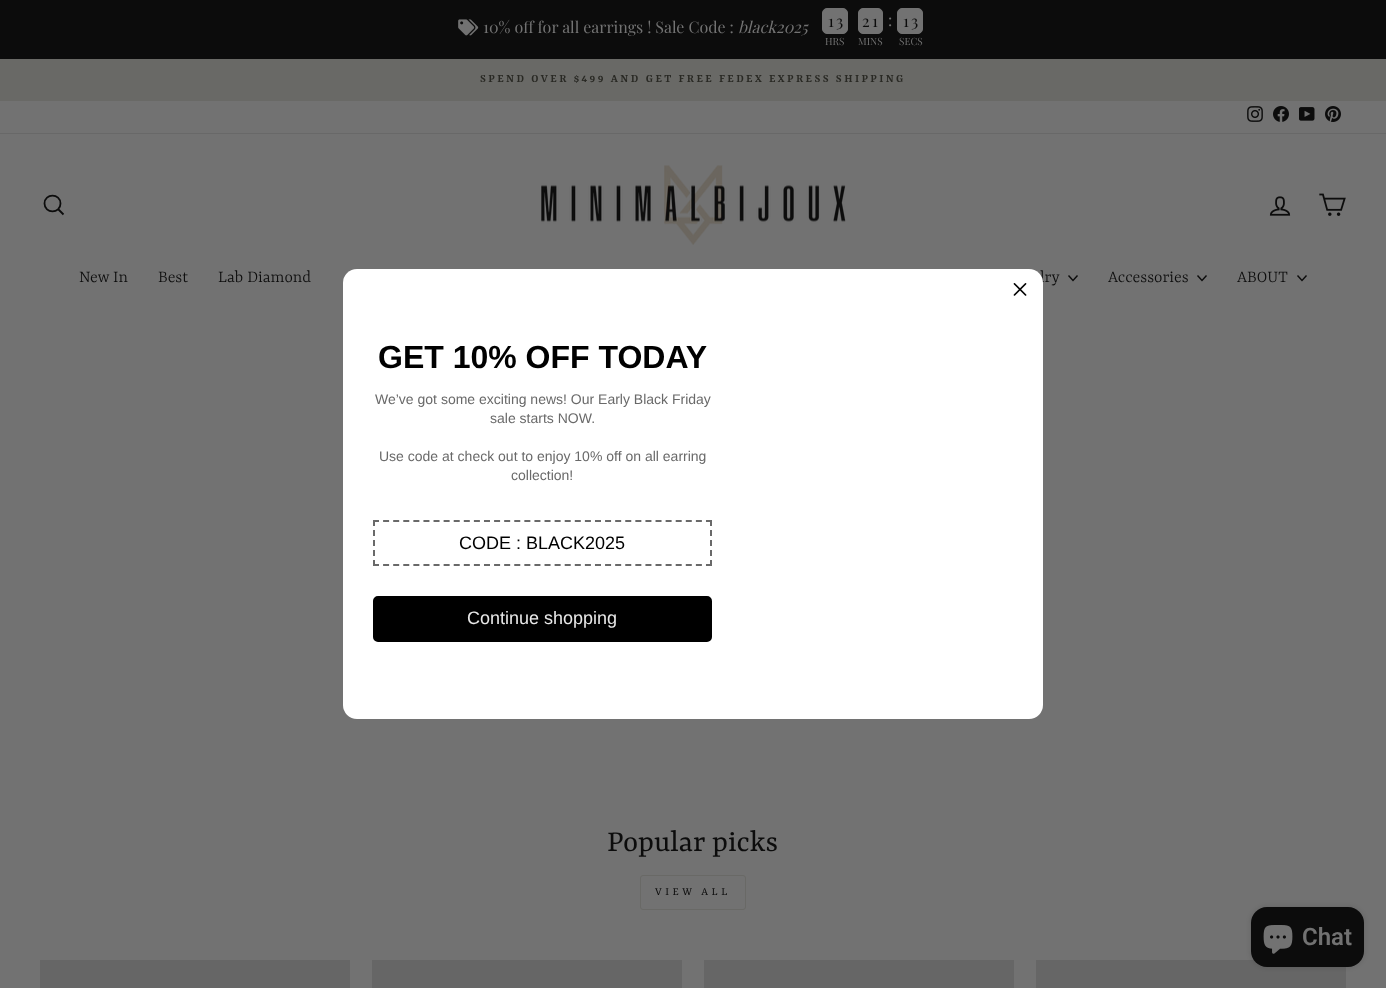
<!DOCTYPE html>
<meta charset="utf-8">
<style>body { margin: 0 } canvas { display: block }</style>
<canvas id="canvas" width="1386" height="988"></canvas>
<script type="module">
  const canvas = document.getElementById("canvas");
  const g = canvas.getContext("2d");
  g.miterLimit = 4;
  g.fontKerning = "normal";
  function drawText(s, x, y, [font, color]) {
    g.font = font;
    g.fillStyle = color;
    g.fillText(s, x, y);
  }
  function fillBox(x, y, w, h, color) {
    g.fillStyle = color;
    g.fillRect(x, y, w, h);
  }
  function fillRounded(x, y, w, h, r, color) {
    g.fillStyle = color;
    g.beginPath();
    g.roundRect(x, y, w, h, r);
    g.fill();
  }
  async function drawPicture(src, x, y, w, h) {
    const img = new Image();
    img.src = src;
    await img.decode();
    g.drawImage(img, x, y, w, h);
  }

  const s1 = ["16px Playfair Display", "#727272"];
  const s2 = ["italic 16px Playfair Display", "#727272"];
  const s3 = ["16px Playfair Display", "#0C0C0C"];
  const s4 = ["10px Playfair Display", "#727272"];
  const s5 = ["600 12.25px Yrsa", "#292924"];
  const s6 = ["300 18px Yrsa", "#0C0C0C"];
  const s7 = ["32.25px Yrsa", "#0C0C0C"];
  const s8 = ["12px Yrsa", "#0C0C0C"];
  const s9 = ["bold 32px Liberation Sans", "#000000"];
  const s10 = ["14px Liberation Sans", "#696969"];
  const s11 = ["18px Liberation Sans", "#000000"];
  const s12 = ["18px Liberation Sans", "#E8E8E8"];
  const s13 = ["600 24px Roboto", "#727272"];

  fillBox(0, 0, 1386, 988, "#727272");
  fillBox(0, 0, 1386, 59, "#0C0C0C");
  await drawPicture("pic1.png", 458, 19, 21, 17);
  drawText("10% off for all earrings ! Sale Code :", 483, 33, s1);
  drawText("black2025", 738, 33, s2);
  g.beginPath();
  g.roundRect(822.5, 8.5, 25, 25, 4.5);
  g.fill();
  g.strokeStyle = "#727272";
  g.stroke();
  drawText("1", 828, 27, s3);
  drawText("3", 836, 27, s3);
  drawText("HRS", 825, 45, s4);
  g.beginPath();
  g.roundRect(858.5, 8.5, 24, 25, 4.5);
  g.fill();
  g.stroke();
  drawText("2", 862, 27, s3);
  drawText("1", 872, 27, s3);
  drawText("MINS", 858, 45, s4);
  drawText(":", 888, 26, s1);
  g.beginPath();
  g.roundRect(897.5, 8.5, 25, 25, 4.5);
  g.fill();
  g.stroke();
  drawText("1", 903, 27, s3);
  drawText("3", 911, 27, s3);
  drawText("SECS", 899, 45, s4);
  fillBox(0, 59, 1386, 42, "#696966");
  g.letterSpacing = "2.45px";
  drawText("SPEND OVER $499 AND GET FREE FEDEX EXPRESS SHIPPING", 480, 82, s5);
  await drawPicture("pic2.png", 1247, 106, 16, 16);
  await drawPicture("pic3.png", 1273, 106, 16, 16);
  await drawPicture("pic4.png", 1299, 107, 16, 14);
  await drawPicture("pic5.png", 1325, 106, 16, 16);
  fillBox(0, 133, 1386, 1, "#686868");
  g.beginPath();
  g.moveTo(60.5, 203.5);
  g.bezierCurveTo(60.5, 214, 44.5, 214, 44.5, 203.5);
  g.bezierCurveTo(44.5, 193, 60.5, 193, 60.5, 203.5);
  g.closePath();
  g.moveTo(63.5, 214.5);
  g.lineTo(58.5, 209.5);
  g.strokeStyle = "#0C0C0C";
  g.lineWidth = 1.8;
  g.stroke();
  await drawPicture("pic6.png", 541, 165, 305, 80);
  await drawPicture("pic7.png", 1269, 196, 22, 20);
  await drawPicture("pic8.png", 1319, 193, 27, 23);
  g.letterSpacing = "0px";
  drawText("New In", 79, 282, s6);
  drawText("Best", 158, 282, s6);
  drawText("Lab Diamond", 218, 282, s6);
  drawText("lry", 1040, 282, s6);
  g.beginPath();
  g.moveTo(1068.5, 275.5);
  g.lineTo(1073, 280.5);
  g.lineTo(1077.5, 275.5);
  g.lineWidth = 1.4;
  g.stroke();
  drawText("Accessories", 1108, 282, s6);
  g.beginPath();
  g.moveTo(1197.5, 275.5);
  g.lineTo(1202, 280.5);
  g.lineTo(1206.5, 275.5);
  g.stroke();
  drawText("ABOUT", 1237, 282, s6);
  g.beginPath();
  g.moveTo(1297.5, 275.5);
  g.lineTo(1302, 280.5);
  g.lineTo(1306.5, 275.5);
  g.stroke();
  drawText("Popular picks", 607, 851, s7);
  g.beginPath();
  g.roundRect(640.5, 875.5, 105, 34, 2.5);
  g.strokeStyle = "#696966";
  g.lineWidth = 1;
  g.stroke();
  g.letterSpacing = "3.5px";
  drawText("VIEW ALL", 655, 895, s8);
  fillBox(40, 960, 310, 28, "#666666");
  fillBox(372, 960, 310, 28, "#666666");
  fillBox(704, 960, 310, 28, "#666666");
  fillBox(1036, 960, 310, 28, "#666666");
  fillRounded(343, 269, 700, 450, 14, "#FFFFFF");
  await drawPicture("pic9.png", 1013, 283, 14, 13);
  g.letterSpacing = "0px";
  drawText("GET 10% OFF TODAY", 378, 368, s9);
  drawText("We’ve got some exciting news! Our Early Black Friday", 375, 404, s10);
  drawText("sale starts NOW.", 490, 423, s10);
  drawText("Use code at check out to enjoy 10% off on all earring", 379, 461, s10);
  drawText("collection!", 511, 480, s10);
  g.beginPath();
  g.moveTo(373, 521);
  g.lineTo(712, 521);
  g.strokeStyle = "#696969";
  g.lineWidth = 2;
  g.setLineDash([6, 4.09]);
  g.stroke();
  g.beginPath();
  g.moveTo(711, 520);
  g.lineTo(711, 566);
  g.setLineDash([6, 4]);
  g.stroke();
  g.beginPath();
  g.moveTo(373, 565);
  g.lineTo(712, 565);
  g.setLineDash([6, 4.09]);
  g.stroke();
  g.beginPath();
  g.moveTo(374, 520);
  g.lineTo(374, 566);
  g.setLineDash([6, 4]);
  g.stroke();
  drawText("CODE : BLACK2025", 459, 549, s11);
  g.beginPath();
  g.roundRect(374, 597, 337, 44, 4);
  g.fill();
  g.strokeStyle = "#000000";
  g.setLineDash([]);
  g.stroke();
  drawText("Continue shopping", 467, 624, s12);
  g.fillStyle = "rgba(12, 12, 12, 0.15)";
  g.filter = "blur(2.5px)";
  g.beginPath();
  g.roundRect(1251, 907, 113, 60, 16);
  g.fill();
  g.filter = "none";
  fillRounded(1251, 907, 113, 60, 16, "#0C0C0C");
  await drawPicture("pic10.png", 1263, 925, 30, 29);
  drawText("Chat", 1302, 945, s13);
</script>
